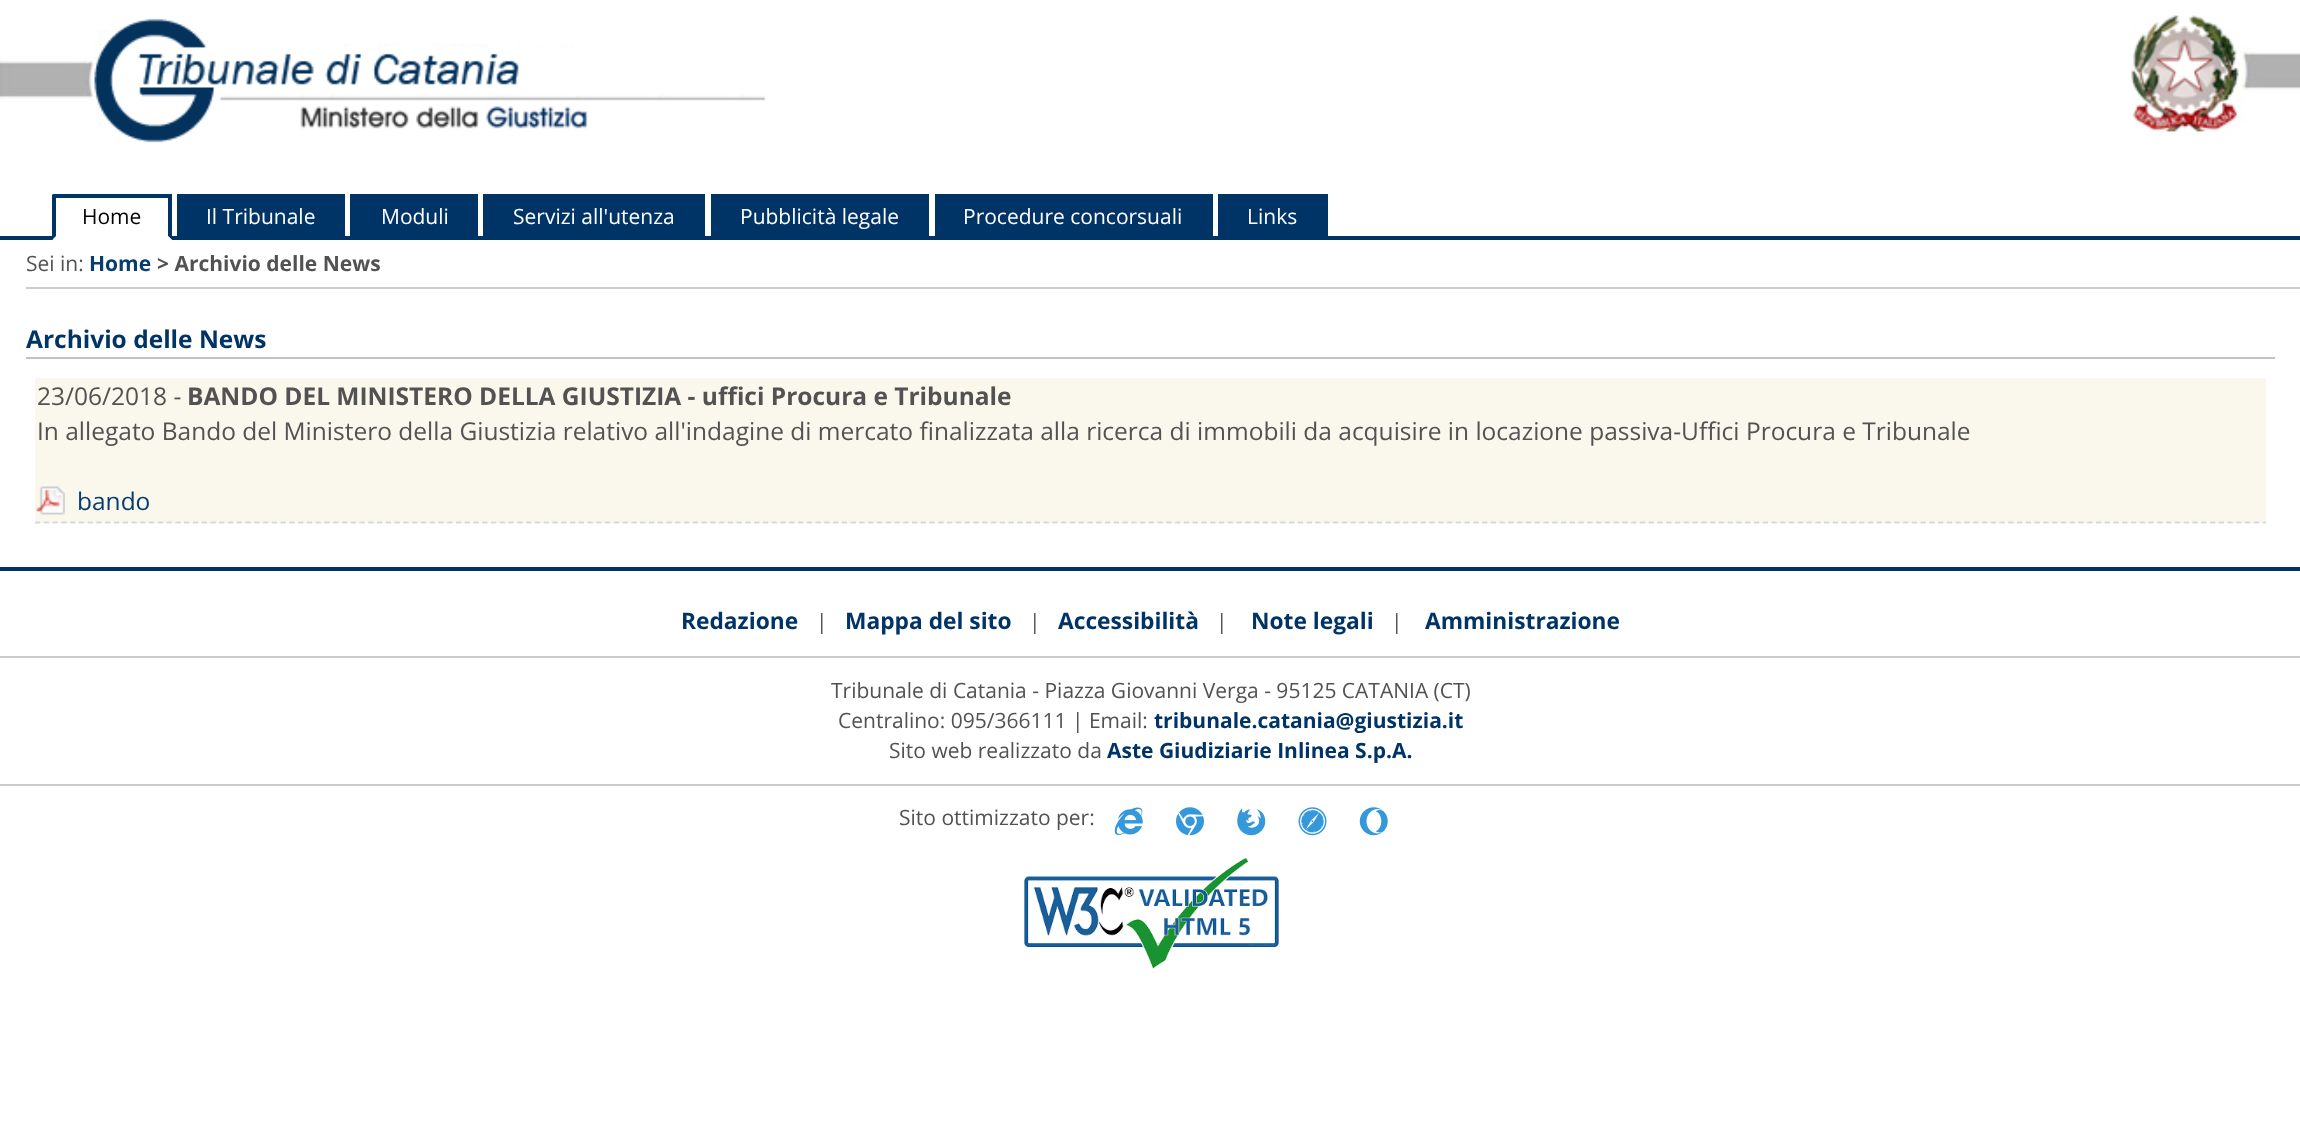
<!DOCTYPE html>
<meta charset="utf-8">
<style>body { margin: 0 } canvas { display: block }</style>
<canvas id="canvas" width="2300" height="1136"></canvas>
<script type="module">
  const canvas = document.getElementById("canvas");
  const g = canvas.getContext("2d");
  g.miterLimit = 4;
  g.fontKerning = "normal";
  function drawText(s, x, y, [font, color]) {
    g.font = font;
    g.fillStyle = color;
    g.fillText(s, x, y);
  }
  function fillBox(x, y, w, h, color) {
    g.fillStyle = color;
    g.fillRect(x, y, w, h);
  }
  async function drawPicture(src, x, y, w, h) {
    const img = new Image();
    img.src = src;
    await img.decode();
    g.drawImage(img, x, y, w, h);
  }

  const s1 = ["21px Open Sans", "#000000"];
  const s2 = ["21px Open Sans", "#FFFFFF"];
  const s3 = ["21px Open Sans", "#525252"];
  const s4 = ["bold 21px Open Sans", "#073D6C"];
  const s5 = ["bold 21px Open Sans", "#525252"];
  const s6 = ["bold 24.5px Open Sans", "#003366"];
  const s7 = ["24.5px Open Sans", "#525252"];
  const s8 = ["bold 24.5px Open Sans", "#525252"];
  const s9 = ["24.5px Open Sans", "#073D6C"];
  const s10 = ["bold 22.75px Open Sans", "#003366"];
  const s11 = ["bold 21px Open Sans", "#003366"];

  fillBox(0, 0, 2300, 1136, "#FFFFFF");
  await drawPicture("pic1.png", 0, 18, 766, 125);
  await drawPicture("pic2.png", 2131, 15, 169, 121);
  fillBox(0, 236, 2300, 4, "#003366");
  fillBox(53, 236, 119, 4, "#FFFFFF");
  fillBox(53, 194, 119, 4, "#003366");
  g.beginPath();
  g.moveTo(172, 194);
  g.lineTo(172, 240);
  g.lineTo(168, 236);
  g.lineTo(168, 198);
  g.closePath();
  g.fill();
  g.fillStyle = "#FFFFFF";
  g.beginPath();
  g.moveTo(172, 240);
  g.lineTo(52, 240);
  g.lineTo(56, 236);
  g.lineTo(168, 236);
  g.closePath();
  g.fill();
  g.fillStyle = "#003366";
  g.beginPath();
  g.moveTo(52, 240);
  g.lineTo(52, 194);
  g.lineTo(56, 198);
  g.lineTo(56, 236);
  g.closePath();
  g.fill();
  drawText("Home", 82, 224, s1);
  fillBox(177, 194, 168, 42, "#003366");
  drawText("Il Tribunale", 206, 224, s2);
  fillBox(350, 194, 128, 42, "#003366");
  drawText("Moduli", 381, 224, s2);
  fillBox(483, 194, 222, 42, "#003366");
  drawText("Servizi all'utenza", 513, 224, s2);
  fillBox(711, 194, 218, 42, "#003366");
  drawText("Pubblicità legale", 740, 224, s2);
  fillBox(935, 194, 278, 42, "#003366");
  drawText("Procedure concorsuali", 963, 224, s2);
  fillBox(1218, 194, 110, 42, "#003366");
  drawText("Links", 1247, 224, s2);
  fillBox(26, 287, 2274, 2, "#CCCCCC");
  drawText("Sei in:", 26, 271, s3);
  drawText("Home", 89, 271, s4);
  drawText("> Archivio delle News", 157, 271, s5);
  fillBox(26, 357, 2249, 2, "#BFC3C3");
  drawText("Archivio delle News", 26, 348, s6);
  fillBox(35, 378, 2231, 145, "#FAF8EC");
  g.beginPath();
  g.moveTo(35, 522.5);
  g.lineTo(2266, 522.5);
  g.strokeStyle = "#D6D8DB";
  g.lineWidth = 1.8;
  g.setLineDash([5.25, 3.52]);
  g.stroke();
  drawText("23/06/2018 -", 37, 405, s7);
  drawText("BANDO DEL MINISTERO DELLA GIUSTIZIA - uffici Procura e Tribunale", 187, 405, s8);
  drawText("In allegato Bando del Ministero della Giustizia relativo all'indagine di mercato finalizzata alla ricerca di immobili da acquisire in locazione passiva-Uffici Procura e Tribunale", 37, 440, s7);
  await drawPicture("pic3.png", 36, 486, 29, 29);
  drawText("bando", 77, 510, s9);
  fillBox(0, 567, 2300, 4, "#003366");
  drawText("Redazione", 681, 629, s10);
  drawText("|", 816, 629, s3);
  drawText("Mappa del sito", 845, 629, s10);
  drawText("|", 1029, 629, s3);
  drawText("Accessibilità", 1058, 629, s10);
  drawText("|", 1216, 629, s3);
  drawText("Note legali", 1251, 629, s10);
  drawText("|", 1391, 629, s3);
  drawText("Amministrazione", 1425, 629, s10);
  fillBox(0, 656, 2300, 2, "#CCCCCC");
  drawText("Tribunale di Catania - Piazza Giovanni Verga - 95125 CATANIA (CT)", 831, 698, s3);
  drawText("Centralino: 095/366111 | Email:", 838, 728, s3);
  drawText("tribunale.catania@giustizia.it", 1154, 728, s11);
  drawText("Sito web realizzato da", 889, 758, s3);
  drawText("Aste Giudiziarie Inlinea S.p.A.", 1107, 758, s11);
  fillBox(0, 784, 2300, 2, "#CCCCCC");
  drawText("Sito ottimizzato per:", 899, 825, s3);
  await drawPicture("pic4.png", 1114, 807, 29, 28);
  await drawPicture("pic5.png", 1176, 807, 28, 29);
  await drawPicture("pic6.png", 1237, 808, 29, 28);
  await drawPicture("pic7.png", 1298, 807, 29, 29);
  await drawPicture("pic8.png", 1359, 807, 29, 29);
  await drawPicture("pic9.png", 1024, 858, 255, 111);
</script>
